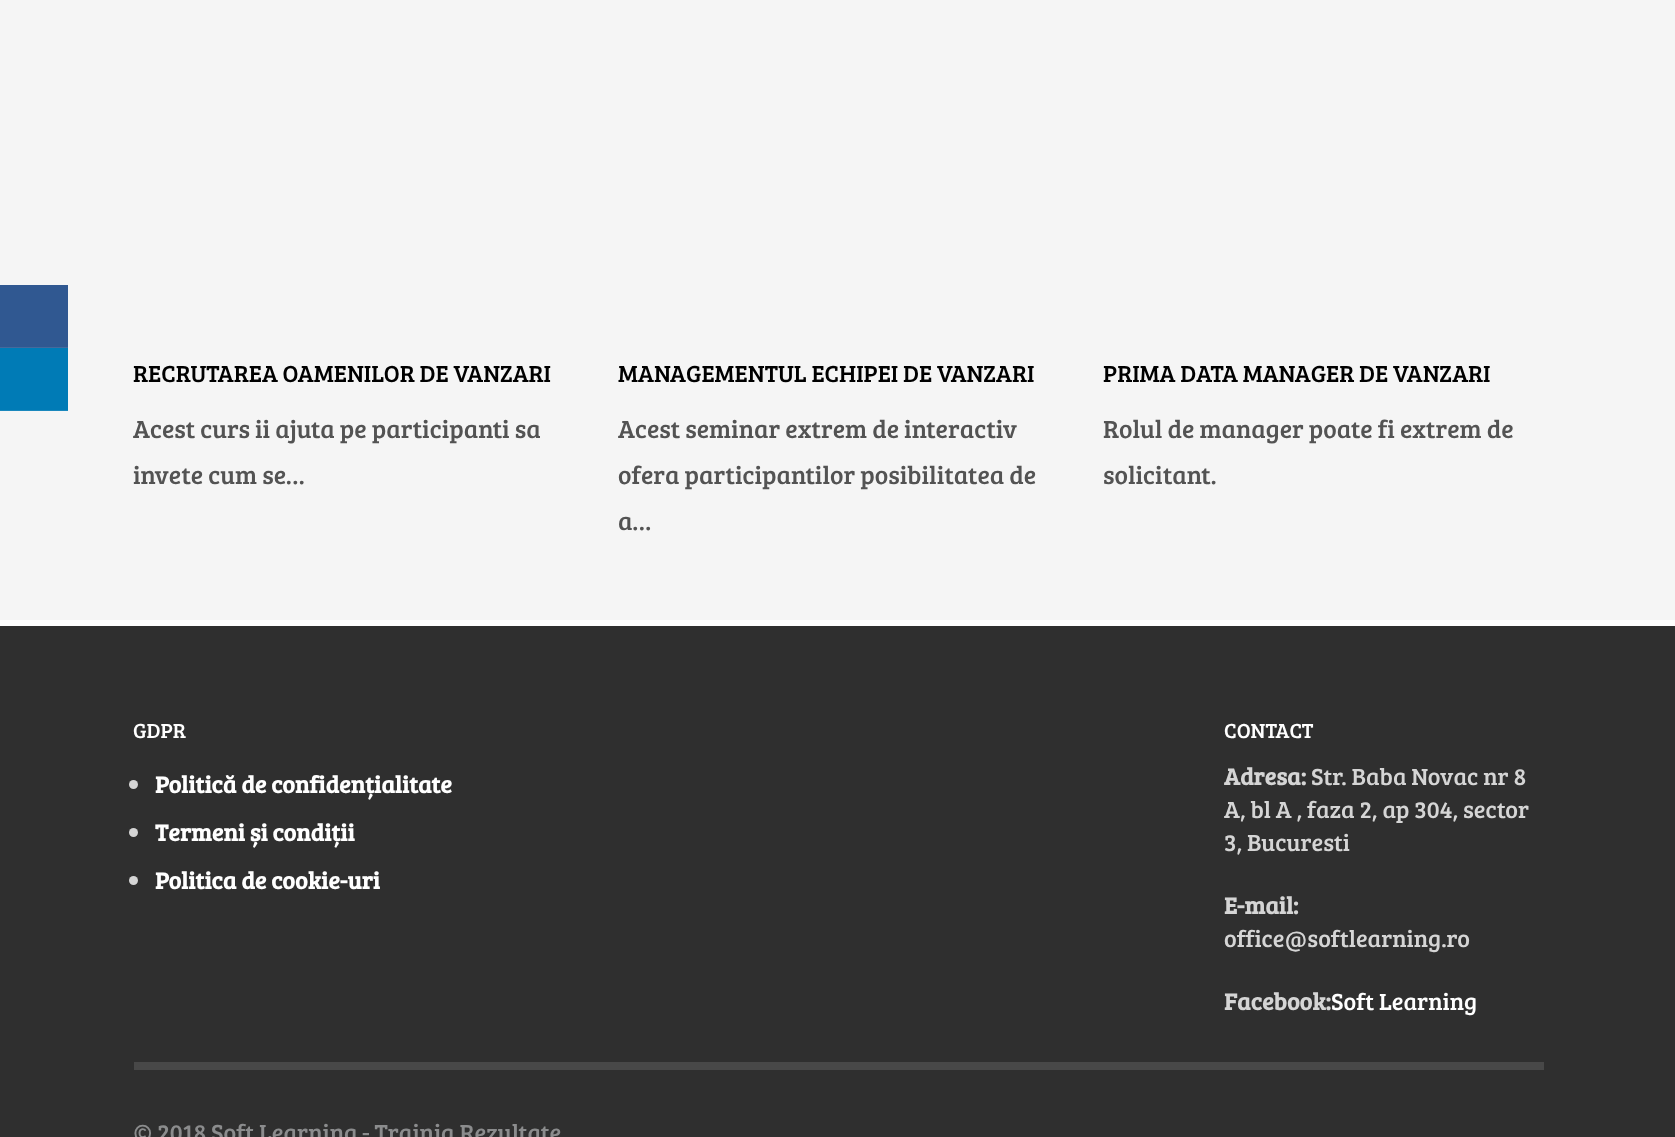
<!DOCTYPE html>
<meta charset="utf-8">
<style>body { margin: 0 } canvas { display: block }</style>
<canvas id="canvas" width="1675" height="1137"></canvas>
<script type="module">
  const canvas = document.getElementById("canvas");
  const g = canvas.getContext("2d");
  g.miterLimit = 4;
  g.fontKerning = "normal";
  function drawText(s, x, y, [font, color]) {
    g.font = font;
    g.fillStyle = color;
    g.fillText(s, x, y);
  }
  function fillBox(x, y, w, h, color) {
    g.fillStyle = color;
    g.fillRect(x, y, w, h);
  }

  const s1 = ["24px Bree Serif", "#000000"];
  const s2 = ["25.5px Bree Serif", "#535353"];
  const s3 = ["21px Bree Serif", "#FFFFFF"];
  const s4 = ["bold 24px Bree Serif", "#FFFFFF"];
  const s5 = ["bold 24px Bree Serif", "#D5D5D5"];
  const s6 = ["24px Bree Serif", "#D5D5D5"];
  const s7 = ["24px Bree Serif", "#FFFFFF"];
  const s8 = ["24px Bree Serif", "#8B8C8D"];

  fillBox(0, 0, 1675, 1137, "#F5F5F5");
  fillBox(0, 285, 68, 62, "#305891");
  fillBox(0, 347, 68, 1, "#45699C");
  fillBox(0, 348, 68, 62, "#007BB6");
  fillBox(0, 410, 68, 1, "#1A88BD");
  drawText("RECRUTAREA OAMENILOR DE VANZARI", 133, 382, s1);
  drawText("Acest curs ii ajuta pe participanti sa", 133, 438, s2);
  drawText("invete cum se…", 133, 484, s2);
  drawText("MANAGEMENTUL ECHIPEI DE VANZARI", 618, 382, s1);
  drawText("Acest seminar extrem de interactiv", 618, 438, s2);
  drawText("ofera participantilor posibilitatea de", 618, 484, s2);
  drawText("a…", 618, 530, s2);
  drawText("PRIMA DATA MANAGER DE VANZARI", 1103, 382, s1);
  drawText("Rolul de manager poate fi extrem de", 1103, 438, s2);
  drawText("solicitant.", 1103, 484, s2);
  fillBox(0, 626, 1675, 511, "#2F2F2F");
  fillBox(0, 620, 1675, 6, "#FFFFFF");
  drawText("GDPR", 133, 738, s3);
  g.fillStyle = "#D5D5D5";
  g.beginPath();
  g.arc(133.5, 784.5, 4.5, 0, Math.PI * 2);
  g.fill();
  drawText("Politică de confidențialitate", 155, 793, s4);
  g.fillStyle = "#D5D5D5";
  g.beginPath();
  g.arc(133.5, 832.5, 4.5, 0, Math.PI * 2);
  g.fill();
  drawText("Termeni și condiții", 155, 841, s4);
  g.fillStyle = "#D5D5D5";
  g.beginPath();
  g.arc(133.5, 880.5, 4.5, 0, Math.PI * 2);
  g.fill();
  drawText("Politica de cookie-uri", 155, 889, s4);
  drawText("CONTACT", 1224, 738, s3);
  drawText("Adresa:", 1224, 785, s5);
  drawText("Str. Baba Novac nr 8", 1311, 785, s6);
  drawText("A, bl A , faza 2, ap 304, sector", 1224, 818, s6);
  drawText("3, Bucuresti", 1224, 851, s6);
  drawText("E-mail:", 1224, 914, s5);
  drawText("office@softlearning.ro", 1224, 947, s6);
  drawText("Facebook:", 1224, 1010, s5);
  drawText("Soft Learning", 1331, 1010, s7);
  fillBox(134, 1062, 1410, 8, "#484848");
  drawText("© 2018 Soft Learning - Trainig.Rezultate", 133, 1141, s8);
</script>
